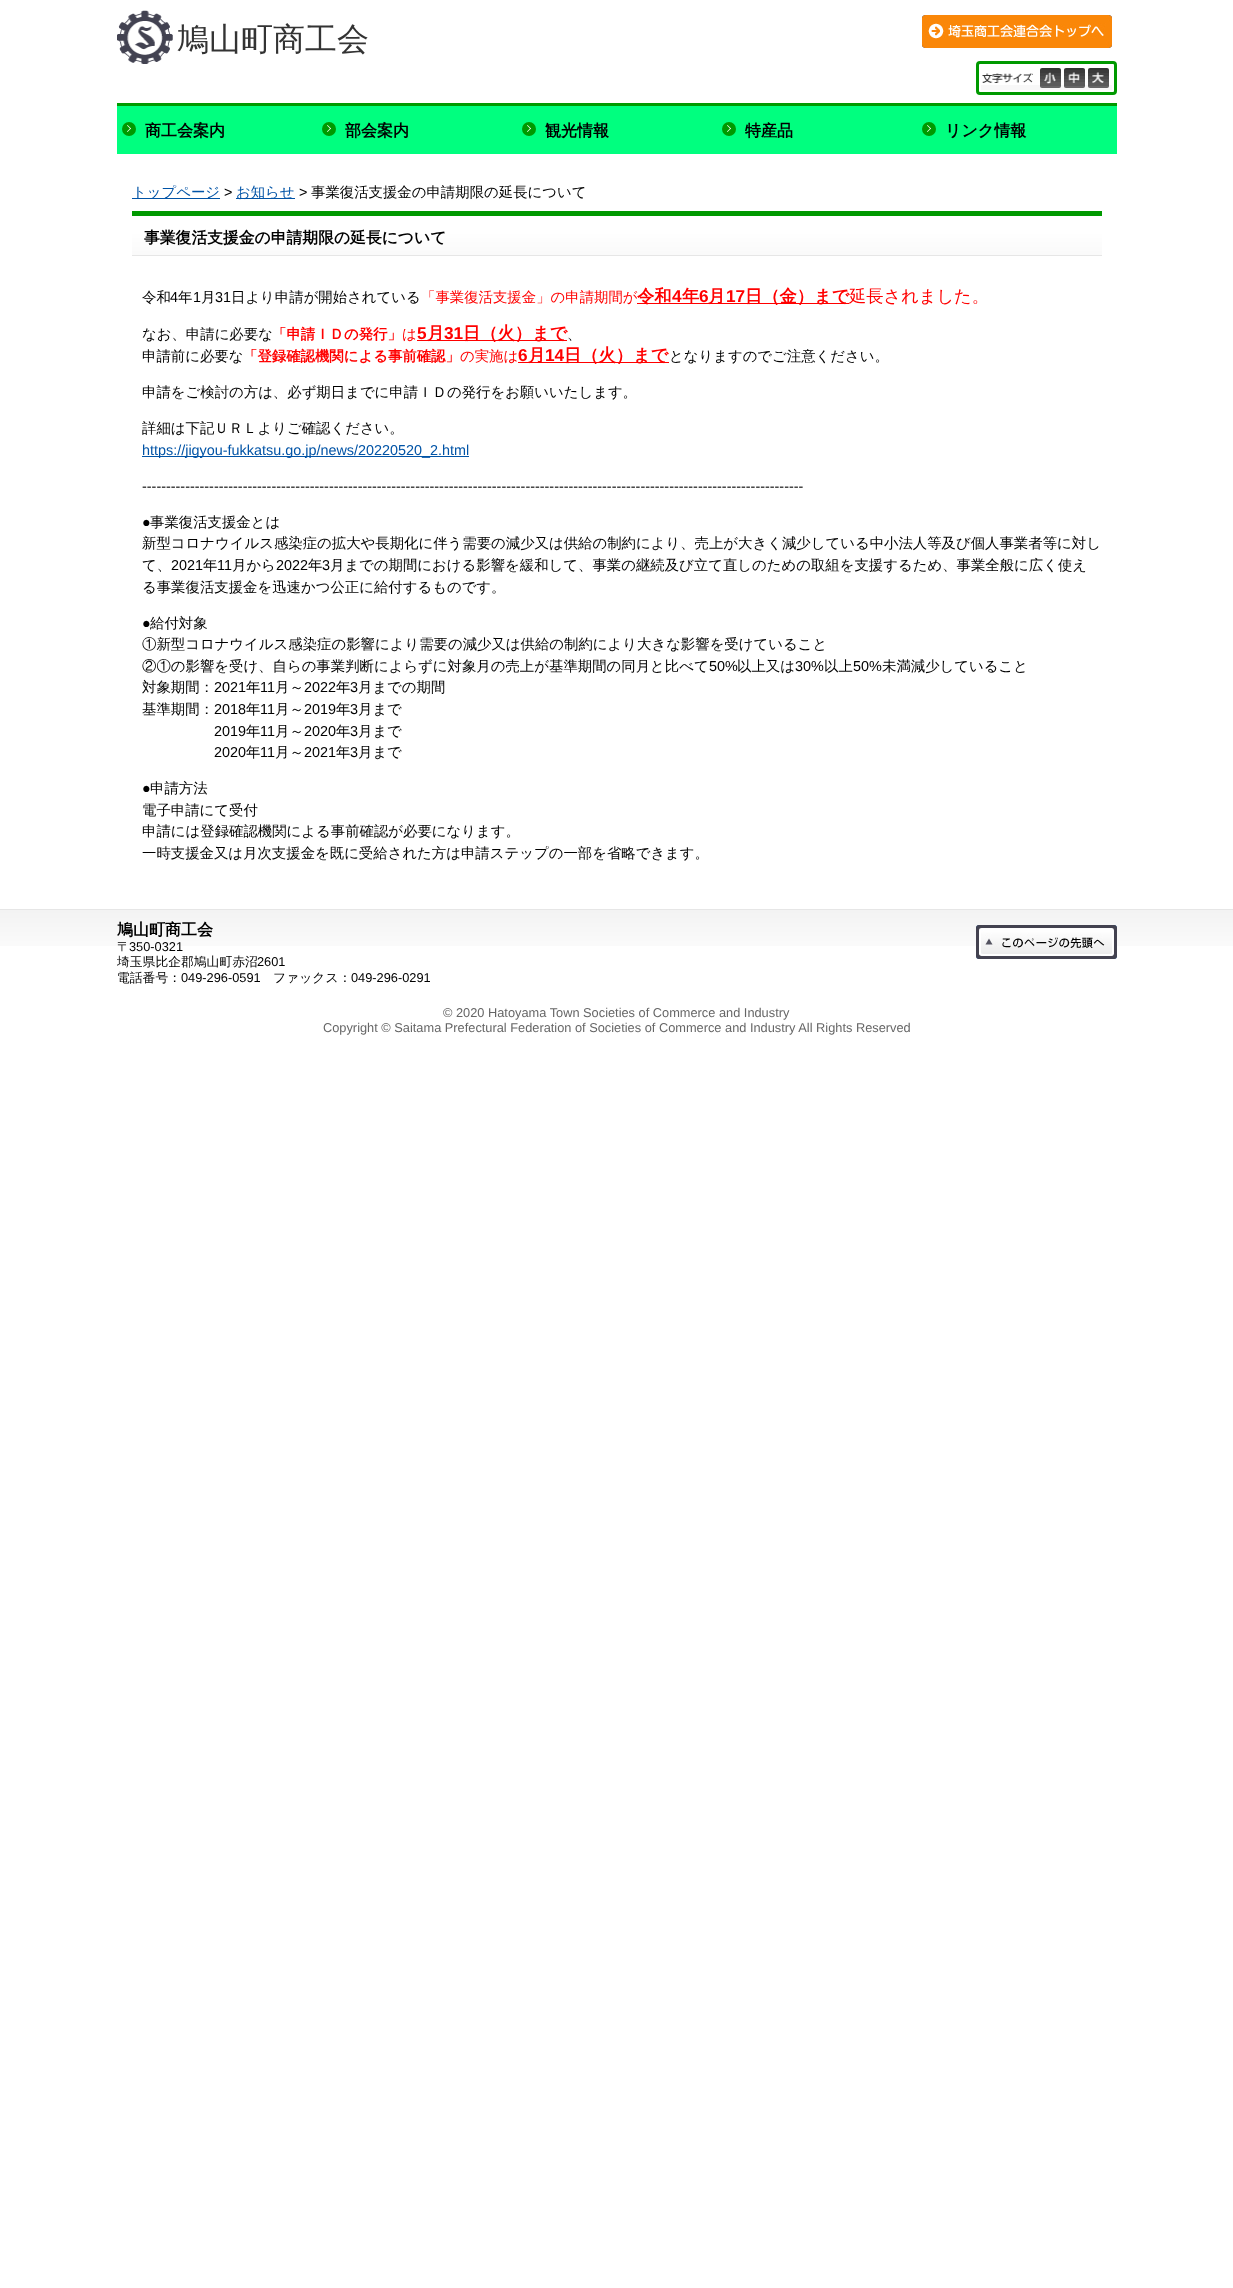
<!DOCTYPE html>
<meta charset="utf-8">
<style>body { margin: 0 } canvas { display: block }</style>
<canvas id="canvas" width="1233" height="2288"></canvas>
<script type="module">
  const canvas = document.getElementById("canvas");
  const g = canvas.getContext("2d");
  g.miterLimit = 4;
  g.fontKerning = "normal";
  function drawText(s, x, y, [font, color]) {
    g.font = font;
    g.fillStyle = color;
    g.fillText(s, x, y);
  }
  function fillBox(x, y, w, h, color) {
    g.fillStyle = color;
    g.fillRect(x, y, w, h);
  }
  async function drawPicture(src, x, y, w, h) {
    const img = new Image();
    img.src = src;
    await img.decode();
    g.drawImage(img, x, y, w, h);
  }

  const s1 = ["500 32px WenQuanYi Zen Hei", "#333333"];
  const s2 = ["bold 16px WenQuanYi Zen Hei", "#000000"];
  const s3 = ["500 14.4px WenQuanYi Zen Hei", "#0053A6"];
  const s4 = ["14.4px Liberation Sans", "#000000"];
  const s5 = ["500 14.4px WenQuanYi Zen Hei", "#000000"];
  const s6 = ["bold 15.8px WenQuanYi Zen Hei", "#000000"];
  const s7 = ["500 14.4px WenQuanYi Zen Hei", "#FF0000"];
  const s8 = ["bold 17.25px WenQuanYi Zen Hei", "#FF0000"];
  const s9 = ["bold 17.25px Liberation Sans", "#FF0000"];
  const s10 = ["500 17.25px WenQuanYi Zen Hei", "#FF0000"];
  const s11 = ["bold 14.4px WenQuanYi Zen Hei", "#FF0000"];
  const s12 = ["14.4px Liberation Sans", "#0053A6"];
  const s13 = ["500 12.8px WenQuanYi Zen Hei", "#000000"];
  const s14 = ["12.8px Liberation Sans", "#000000"];
  const s15 = ["12.8px Liberation Sans", "#666666"];

  fillBox(0, 0, 1233, 2288, "#FFFFFF");
  await drawPicture("pic1.png", 117, 10, 56, 54);
  drawText("鳩山町商工会", 177, 50, s1);
  await drawPicture("pic2.png", 922, 15, 190, 33);
  fillBox(981, 85, 131, 5, "#F8F8F8");
  g.beginPath();
  g.roundRect(977.5, 62.5, 138, 31, 2.5);
  g.strokeStyle = "#009900";
  g.lineWidth = 3;
  g.stroke();
  await drawPicture("pic3.png", 982, 73, 51, 10);
  await drawPicture("pic4.png", 1040, 68, 21, 20);
  await drawPicture("pic5.png", 1064, 68, 21, 20);
  await drawPicture("pic6.png", 1088, 68, 21, 20);
  fillBox(117, 106, 1000, 48, "#00FF7F");
  fillBox(117, 103, 1000, 3, "#009900");
  g.beginPath();
  g.arc(129, 129, 7, 0, Math.PI * 2);
  g.fill();
  drawText("商工会案内", 145, 136, s2);
  g.fillStyle = "#FFFFFF";
  g.beginPath();
  g.moveTo(127, 125.5);
  g.lineTo(127.5, 125);
  g.lineTo(131, 128.5);
  g.lineTo(130.5, 129);
  g.closePath();
  g.fill();
  g.beginPath();
  g.moveTo(127, 131.5);
  g.lineTo(130.5, 128);
  g.lineTo(131, 128.5);
  g.lineTo(127.5, 132);
  g.closePath();
  g.fill();
  g.fillStyle = "#009900";
  g.beginPath();
  g.arc(329, 129, 7, 0, Math.PI * 2);
  g.fill();
  drawText("部会案内", 345, 136, s2);
  g.fillStyle = "#FFFFFF";
  g.beginPath();
  g.moveTo(327, 125.5);
  g.lineTo(327.5, 125);
  g.lineTo(331, 128.5);
  g.lineTo(330.5, 129);
  g.closePath();
  g.fill();
  g.beginPath();
  g.moveTo(327, 131.5);
  g.lineTo(330.5, 128);
  g.lineTo(331, 128.5);
  g.lineTo(327.5, 132);
  g.closePath();
  g.fill();
  g.fillStyle = "#009900";
  g.beginPath();
  g.arc(529, 129, 7, 0, Math.PI * 2);
  g.fill();
  drawText("観光情報", 545, 136, s2);
  g.fillStyle = "#FFFFFF";
  g.beginPath();
  g.moveTo(527, 125.5);
  g.lineTo(527.5, 125);
  g.lineTo(531, 128.5);
  g.lineTo(530.5, 129);
  g.closePath();
  g.fill();
  g.beginPath();
  g.moveTo(527, 131.5);
  g.lineTo(530.5, 128);
  g.lineTo(531, 128.5);
  g.lineTo(527.5, 132);
  g.closePath();
  g.fill();
  g.fillStyle = "#009900";
  g.beginPath();
  g.arc(729, 129, 7, 0, Math.PI * 2);
  g.fill();
  drawText("特産品", 745, 136, s2);
  g.fillStyle = "#FFFFFF";
  g.beginPath();
  g.moveTo(727, 125.5);
  g.lineTo(727.5, 125);
  g.lineTo(731, 128.5);
  g.lineTo(730.5, 129);
  g.closePath();
  g.fill();
  g.beginPath();
  g.moveTo(727, 131.5);
  g.lineTo(730.5, 128);
  g.lineTo(731, 128.5);
  g.lineTo(727.5, 132);
  g.closePath();
  g.fill();
  g.fillStyle = "#009900";
  g.beginPath();
  g.arc(929, 129, 7, 0, Math.PI * 2);
  g.fill();
  drawText("リンク情報", 945, 136, s2);
  g.fillStyle = "#FFFFFF";
  g.beginPath();
  g.moveTo(927, 125.5);
  g.lineTo(927.5, 125);
  g.lineTo(931, 128.5);
  g.lineTo(930.5, 129);
  g.closePath();
  g.fill();
  g.beginPath();
  g.moveTo(927, 131.5);
  g.lineTo(930.5, 128);
  g.lineTo(931, 128.5);
  g.lineTo(927.5, 132);
  g.closePath();
  g.fill();
  fillBox(132, 198, 88, 1, "#0053A6");
  drawText("トップページ", 132, 197, s3);
  drawText(">", 224, 197, s4);
  fillBox(236, 198, 59, 1, "#0053A6");
  drawText("お知らせ", 236, 197, s3);
  drawText(">", 299, 197, s4);
  drawText("事業復活支援金の申請期限の延長について", 311, 197, s5);
  await drawPicture("pic7.png", 132, 216, 970, 39);
  fillBox(132, 211, 970, 5, "#009900");
  fillBox(132, 255, 970, 1, "#E6E6E6");
  drawText("事業復活支援金の申請期限の延長について", 144, 243, s6);
  drawText("令和", 142, 302, s5);
  drawText("4", 170, 302, s4);
  drawText("年", 178, 302, s5);
  drawText("1", 193, 302, s4);
  drawText("月", 201, 302, s5);
  drawText("31", 215, 302, s4);
  drawText("日より申請が開始されている", 231, 302, s5);
  drawText("「事業復活支援金」の申請期間が", 421, 302, s7);
  fillBox(637, 303, 212, 1, "#FF0000");
  drawText("令和", 637, 302, s8);
  drawText("4", 672, 302, s9);
  drawText("年", 682, 302, s8);
  drawText("6", 699, 302, s9);
  drawText("月", 708, 302, s8);
  drawText("17", 726, 302, s9);
  drawText("日（金）まで", 745, 302, s8);
  drawText("延長されました。", 849, 302, s10);
  drawText("なお、申請に必要な", 142, 339, s5);
  drawText("「申請ＩＤの発行」", 272, 339, s11);
  drawText("は", 402, 339, s7);
  fillBox(417, 340, 150, 1, "#FF0000");
  drawText("5", 417, 339, s9);
  drawText("月", 427, 339, s8);
  drawText("31", 444, 339, s9);
  drawText("日（火）まで", 463, 339, s8);
  drawText("、", 567, 339, s5);
  drawText("申請前に必要な", 142, 361, s5);
  drawText("「登録確認機関による事前確認」", 243, 361, s11);
  drawText("の実施は", 460, 361, s7);
  fillBox(518, 362, 151, 1, "#FF0000");
  drawText("6", 518, 361, s9);
  drawText("月", 528, 361, s8);
  drawText("14", 545, 361, s9);
  drawText("日（火）まで", 564, 361, s8);
  drawText("となりますのでご注意ください。", 669, 361, s5);
  drawText("申請をご検討の方は、必ず期日までに申請ＩＤの発行をお願いいたします。", 142, 397, s5);
  g.save();
  g.beginPath();
  g.rect(142, 271, 960, 608);
  g.clip();
  drawText("詳細は下記ＵＲＬよりご確認ください。", 142, 433, s5);
  g.restore();
  fillBox(142, 456, 327, 1, "#0053A6");
  drawText("https://jigyou-fukkatsu.go.jp/news/20220520_2.html", 142, 455, s12);
  drawText("------------------------------------------------------------------------------------------------------------------------------------------", 142, 491, s4);
  drawText("●", 142, 527, s4);
  drawText("事業復活支援金とは", 150, 527, s5);
  drawText("新型コロナウイルス感染症の拡大や長期化に伴う需要の減少又は供給の制約により、売上が大きく減少している中小法人等及び個人事業者等に対し", 142, 548, s5);
  drawText("て、", 142, 570, s5);
  drawText("2021", 171, 570, s4);
  drawText("年", 203, 570, s5);
  drawText("11", 217, 570, s4);
  drawText("月から", 232, 570, s5);
  drawText("2022", 276, 570, s4);
  drawText("年", 308, 570, s5);
  drawText("3", 322, 570, s4);
  drawText("月までの期間における影響を緩和して、事業の継続及び立て直しのための取組を支援するため、事業全般に広く使え", 330, 570, s5);
  drawText("る事業復活支援金を迅速かつ公正に給付するものです。", 142, 592, s5);
  drawText("●", 142, 628, s4);
  drawText("給付対象", 150, 628, s5);
  drawText("①新型コロナウイルス感染症の影響により需要の減少又は供給の制約により大きな影響を受けていること", 142, 649, s5);
  drawText("②①の影響を受け、自らの事業判断によらずに対象月の売上が基準期間の同月と比べて", 142, 671, s5);
  drawText("50%", 709, 671, s4);
  drawText("以上又は", 737, 671, s5);
  drawText("30%", 795, 671, s4);
  drawText("以上", 824, 671, s5);
  drawText("50%", 853, 671, s4);
  drawText("未満減少していること", 882, 671, s5);
  drawText("対象期間：", 142, 692, s5);
  drawText("2021", 214, 692, s4);
  drawText("年", 246, 692, s5);
  drawText("11", 260, 692, s4);
  drawText("月～", 275, 692, s5);
  drawText("2022", 304, 692, s4);
  drawText("年", 336, 692, s5);
  drawText("3", 350, 692, s4);
  drawText("月までの期間", 358, 692, s5);
  drawText("基準期間：", 142, 714, s5);
  drawText("2018", 214, 714, s4);
  drawText("年", 246, 714, s5);
  drawText("11", 260, 714, s4);
  drawText("月～", 275, 714, s5);
  drawText("2019", 304, 714, s4);
  drawText("年", 336, 714, s5);
  drawText("3", 350, 714, s4);
  drawText("月まで", 358, 714, s5);
  drawText("2019", 214, 736, s4);
  drawText("年", 246, 736, s5);
  drawText("11", 260, 736, s4);
  drawText("月～", 275, 736, s5);
  drawText("2020", 304, 736, s4);
  drawText("年", 336, 736, s5);
  drawText("3", 350, 736, s4);
  drawText("月まで", 358, 736, s5);
  drawText("2020", 214, 757, s4);
  drawText("年", 246, 757, s5);
  drawText("11", 260, 757, s4);
  drawText("月～", 275, 757, s5);
  drawText("2021", 304, 757, s4);
  drawText("年", 336, 757, s5);
  drawText("3", 350, 757, s4);
  drawText("月まで", 358, 757, s5);
  drawText("●", 142, 793, s4);
  drawText("申請方法", 150, 793, s5);
  drawText("電子申請にて受付", 142, 815, s5);
  drawText("申請には登録確認機関による事前確認が必要になります。", 142, 836, s5);
  drawText("一時支援金又は月次支援金を既に受給された方は申請ステップの一部を省略できます。", 142, 858, s5);
  await drawPicture("pic8.png", 0, 910, 1233, 36);
  fillBox(0, 909, 1233, 1, "#E6E6E6");
  drawText("鳩山町商工会", 117, 935, s2);
  drawText("〒", 117, 951, s13);
  drawText("350-0321", 129, 951, s14);
  g.save();
  g.beginPath();
  g.rect(117, 920, 400, 65);
  g.clip();
  drawText("埼玉県比企郡鳩山町赤沼", 117, 966, s13);
  g.restore();
  drawText("2601", 257, 966, s14);
  drawText("電話番号：", 117, 982, s13);
  drawText("049-296-0591", 181, 982, s14);
  drawText("ファックス：", 273, 982, s13);
  drawText("049-296-0291", 351, 982, s14);
  await drawPicture("pic9.png", 976, 925, 141, 34);
  drawText("© 2020 Hatoyama Town Societies of Commerce and Industry", 443, 1017, s15);
  drawText("Copyright © Saitama Prefectural Federation of Societies of Commerce and Industry All Rights Reserved", 323, 1032, s15);
</script>
